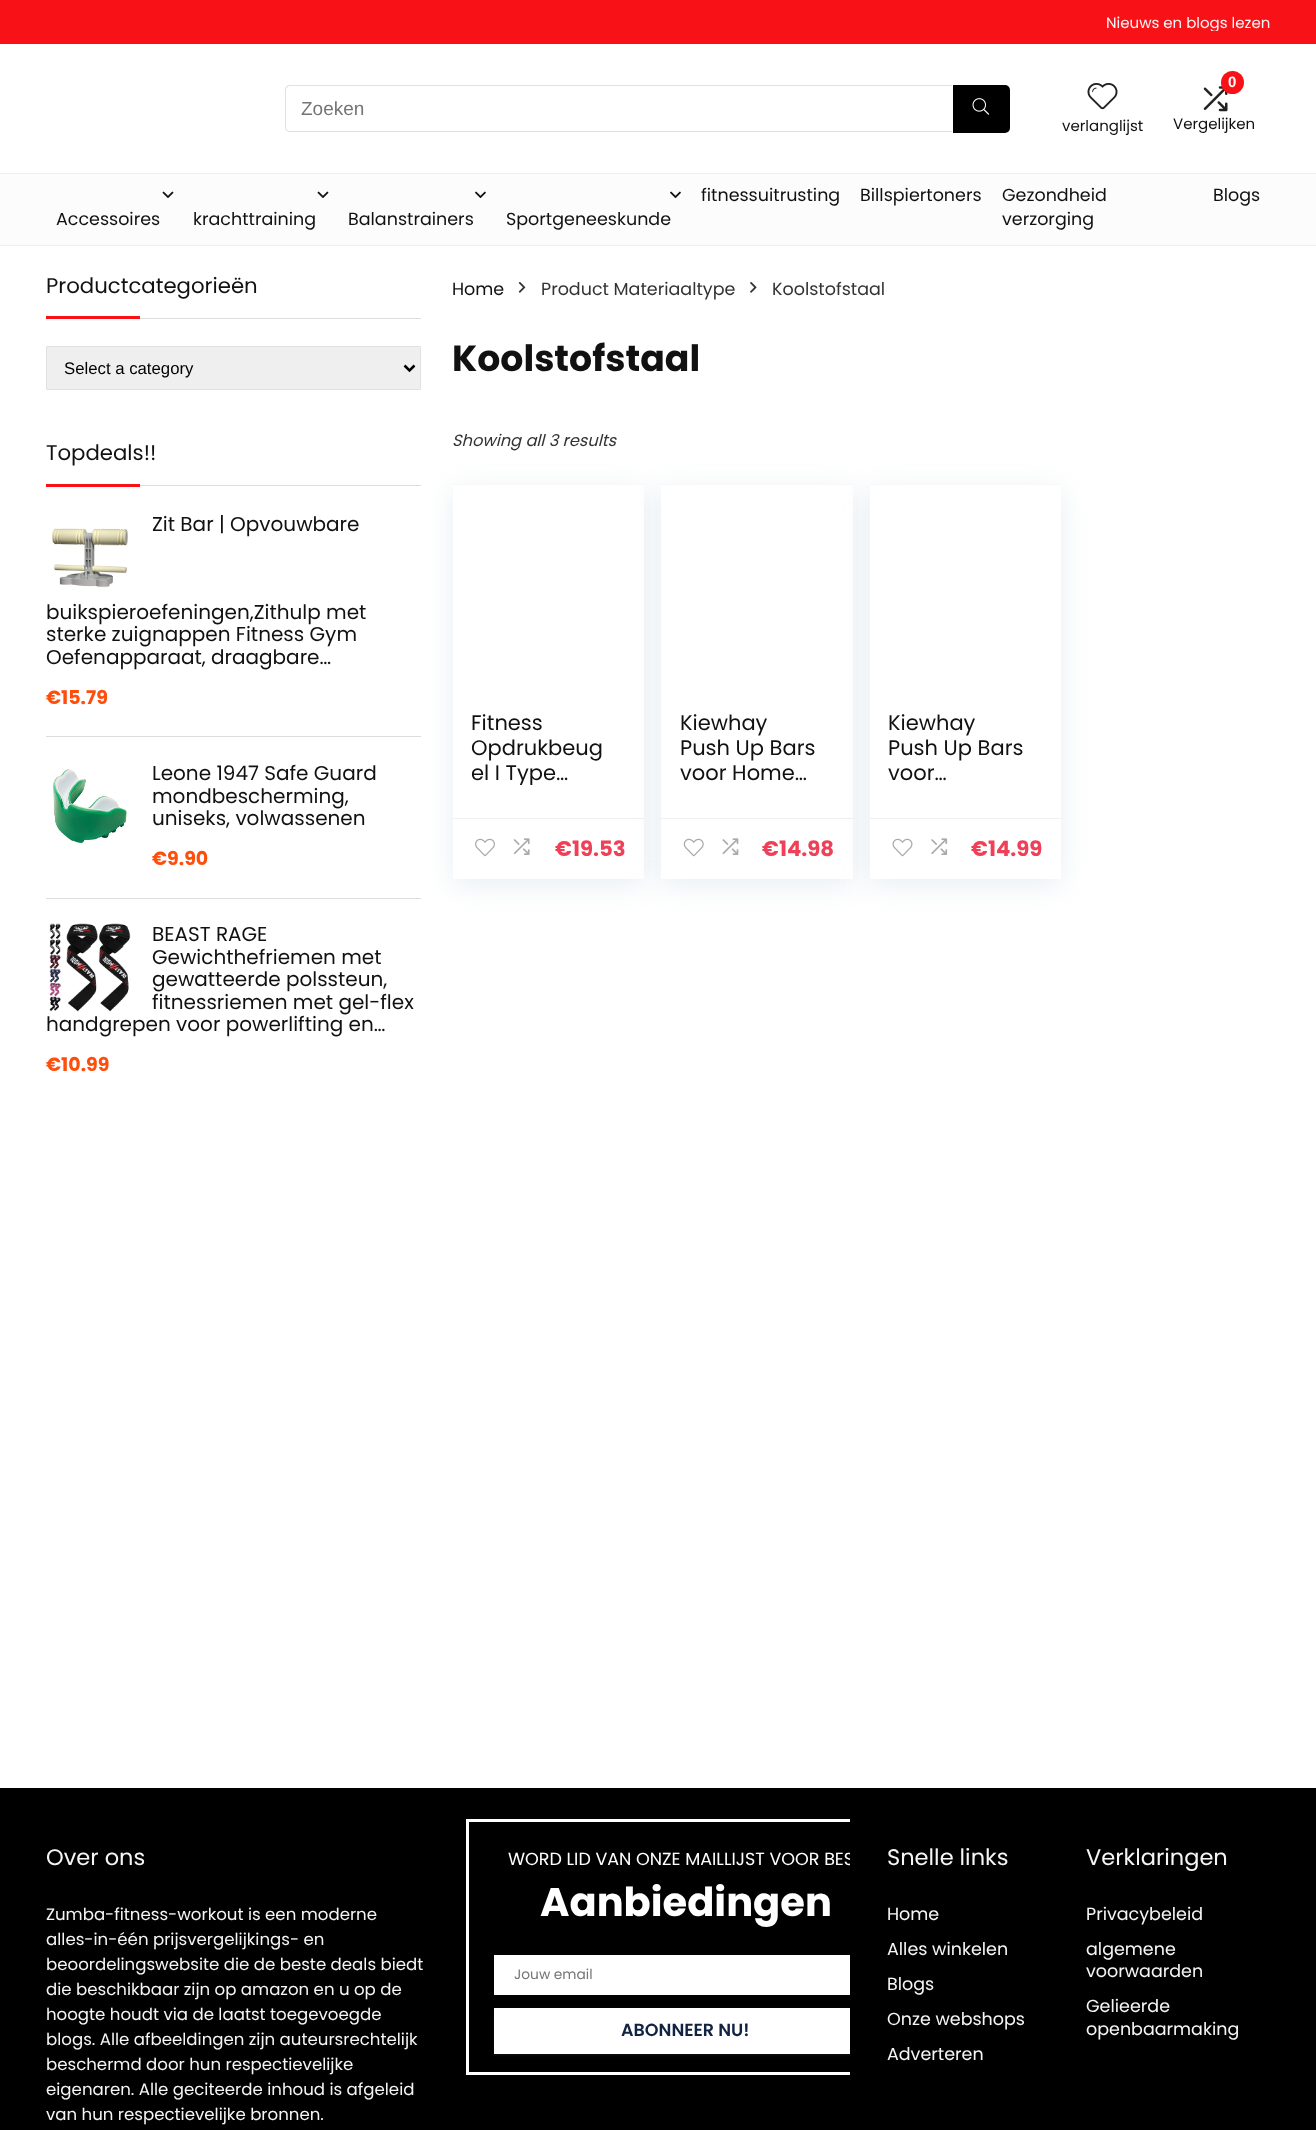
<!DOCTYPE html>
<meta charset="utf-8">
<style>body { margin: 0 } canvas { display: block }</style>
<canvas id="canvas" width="1316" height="2130"></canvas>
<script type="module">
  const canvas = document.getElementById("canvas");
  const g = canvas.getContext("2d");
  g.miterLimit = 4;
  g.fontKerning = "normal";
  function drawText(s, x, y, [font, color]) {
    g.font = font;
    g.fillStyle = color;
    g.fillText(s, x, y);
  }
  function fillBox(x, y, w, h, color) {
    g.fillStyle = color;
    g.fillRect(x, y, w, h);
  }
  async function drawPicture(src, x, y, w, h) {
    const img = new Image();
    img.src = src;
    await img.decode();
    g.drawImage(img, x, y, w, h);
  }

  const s1 = ["15px Poppins", "#F5F5F5"];
  const s2 = ["19px Liberation Sans", "#757575"];
  const s3 = ["15px Poppins", "#111111"];
  const s4 = ["bold 15px Liberation Sans", "#FFFFFF"];
  const s5 = ["17.5px Poppins", "#111111"];
  const s6 = ["21.25px Poppins", "#111111"];
  const s7 = ["16.75px Liberation Sans", "#000000"];
  const s8 = ["20px Poppins", "#111111"];
  const s9 = ["bold 19px Poppins", "#FF4E0C"];
  const s10 = ["17.5px Poppins", "#333333"];
  const s11 = ["bold 36.25px Poppins", "#111111"];
  const s12 = ["italic 16.25px Poppins", "#333333"];
  const s13 = ["21px Poppins", "#111111"];
  const s14 = ["bold 21.25px Poppins", "#F04057"];
  const s15 = ["22.5px Poppins", "#F5F5F5"];
  const s16 = ["16.6px Poppins", "#F5F5F5"];
  const s17 = ["17.5px Poppins", "#FFFFFF"];
  const s18 = ["bold 40px Poppins", "#FFFFFF"];
  const s19 = ["13.75px Poppins", "#757575"];
  const s20 = ["600 17.5px Poppins", "#102341"];
  const s21 = ["17.5px Poppins", "#F5F5F5"];

  fillBox(0, 0, 1316, 2130, "#FFFFFF");
  fillBox(0, 0, 1316, 44, "#F81116");
  g.save();
  g.beginPath();
  g.rect(1106, 13, 165, 18);
  g.clip();
  drawText("Nieuws en blogs lezen", 1106, 28, s1);
  g.restore();
  g.fillStyle = "#E1E1E1";
  g.beginPath();
  g.moveTo(290, 85);
  g.lineTo(952, 85);
  g.lineTo(952, 132);
  g.lineTo(290, 132);
  g.bezierCurveTo(287, 132, 285, 130, 285, 128);
  g.lineTo(285, 90);
  g.bezierCurveTo(285, 87, 287, 85, 290, 85);
  g.closePath();
  g.moveTo(290, 86);
  g.lineTo(952, 86);
  g.lineTo(952, 131);
  g.lineTo(290, 131);
  g.bezierCurveTo(288, 131, 286, 130, 286, 128);
  g.lineTo(286, 90);
  g.bezierCurveTo(286, 88, 288, 86, 290, 86);
  g.closePath();
  g.fill("evenodd");
  drawText("Zoeken", 301, 115, s2);
  g.fillStyle = "#000000";
  g.beginPath();
  g.roundRect(953, 85, 57, 48, [0, 5, 5, 0]);
  g.fill();
  await drawPicture("pic1.png", 972, 98, 18, 17);
  await drawPicture("pic2.png", 1087, 83, 31, 27);
  drawText("verlanglijst", 1062, 131, s3);
  await drawPicture("pic3.png", 1203, 86, 25, 26);
  g.fillStyle = "#F81116";
  g.beginPath();
  g.arc(1232.5, 82.5, 11.5, 0, Math.PI * 2);
  g.fill();
  drawText("0", 1228, 87, s4);
  drawText("Vergelijken", 1173, 129, s3);
  fillBox(0, 174, 1316, 71, "#FCFCFC");
  fillBox(0, 173, 1316, 1, "#EEEEEE");
  fillBox(0, 245, 1316, 1, "#EEEEEE");
  drawText("fitnessuitrusting", 701, 201, s5);
  drawText("Billspiertoners", 860, 201, s5);
  drawText("Gezondheid", 1002, 201, s5);
  drawText("verzorging", 1002, 225, s5);
  drawText("Blogs", 1213, 201, s5);
  await drawPicture("pic4.png", 162, 191, 12, 7);
  drawText("Accessoires", 56, 225, s5);
  await drawPicture("pic4.png", 317, 191, 12, 7);
  drawText("krachttraining", 193, 225, s5);
  await drawPicture("pic5.png", 475, 191, 11, 8);
  drawText("Balanstrainers", 348, 225, s5);
  await drawPicture("pic5.png", 670, 191, 11, 8);
  drawText("Sportgeneeskunde", 506, 225, s5);
  fillBox(140, 318, 281, 1, "#DDDDDD");
  drawText("Productcategorieën", 46, 293, s6);
  fillBox(46, 316, 94, 3, "#F81116");
  g.fillStyle = "#EFEFEF";
  g.beginPath();
  g.rect(46.5, 346.5, 374, 43);
  g.fill();
  g.strokeStyle = "#E1E1E1";
  g.stroke();
  g.beginPath();
  g.moveTo(404.5, 365.5);
  g.lineTo(409.5, 370.5);
  g.lineTo(414.5, 365.5);
  g.strokeStyle = "#000000";
  g.lineWidth = 2.5;
  g.stroke();
  drawText("Select a category", 64, 374, s7);
  fillBox(140, 485, 281, 1, "#DDDDDD");
  drawText("Topdeals!!", 46, 460, s6);
  fillBox(46, 484, 94, 3, "#F81116");
  fillBox(46, 736, 375, 1, "#DDDDDD");
  await drawPicture("pic6.png", 52, 528, 76, 60);
  drawText("Zit Bar | Opvouwbare", 152, 531, s8);
  drawText("buikspieroefeningen,Zithulp met", 46, 619, s8);
  drawText("sterke zuignappen Fitness Gym", 46, 641, s8);
  drawText("Oefenapparaat, draagbare…", 46, 664, s8);
  drawText("€15.79", 46, 704, s9);
  fillBox(46, 898, 375, 1, "#DDDDDD");
  await drawPicture("pic7.png", 53, 769, 74, 75);
  drawText("Leone 1947 Safe Guard", 152, 780, s8);
  drawText("mondbescherming,", 152, 803, s8);
  drawText("uniseks, volwassenen", 152, 825, s8);
  drawText("€9.90", 152, 865, s9);
  await drawPicture("pic8.png", 49, 923, 82, 89);
  drawText("BEAST RAGE", 152, 941, s8);
  drawText("Gewichthefriemen met", 152, 964, s8);
  drawText("gewatteerde polssteun,", 152, 986, s8);
  drawText("fitnessriemen met gel-flex", 152, 1009, s8);
  drawText("handgrepen voor powerlifting en…", 46, 1031, s8);
  drawText("€10.99", 46, 1071, s9);
  drawText("Home", 452, 295, s5);
  await drawPicture("pic9.png", 518, 281, 8, 12);
  drawText("Product Materiaaltype", 541, 295, s10);
  await drawPicture("pic10.png", 750, 281, 7, 12);
  drawText("Koolstofstaal", 772, 295, s10);
  drawText("Koolstofstaal", 452, 371, s11);
  drawText("Showing all 3 results", 452, 446, s12);
  g.fillStyle = "rgba(188, 207, 219, 0.35)";
  g.filter = "blur(14.5px)";
  g.beginPath();
  g.rect(453, 490, 191, 395);
  g.fill();
  g.filter = "none";
  fillBox(453, 485, 191, 394, "#FFFFFF");
  fillBox(453, 484, 191, 1, "#F8F8F8");
  drawText("Fitness", 471, 730, s13);
  drawText("Opdrukbeug", 471, 755, s13);
  g.save();
  g.beginPath();
  g.rect(471, 710, 135, 75);
  g.clip();
  drawText("el I Type…", 471, 780, s13);
  g.restore();
  fillBox(453, 818, 191, 1, "#F0F0F0");
  await drawPicture("pic11.png", 475, 838, 20, 19);
  await drawPicture("pic12.png", 513, 838, 17, 17);
  drawText("€19.53", 555, 856, s14);
  g.fillStyle = "rgba(188, 207, 219, 0.35)";
  g.filter = "blur(14.5px)";
  g.beginPath();
  g.rect(661, 490, 192, 395);
  g.fill();
  g.filter = "none";
  fillBox(661, 485, 192, 394, "#FFFFFF");
  fillBox(661, 484, 192, 1, "#F8F8F8");
  drawText("Kiewhay", 680, 730, s13);
  drawText("Push Up Bars", 680, 755, s13);
  drawText("voor Home…", 680, 780, s13);
  fillBox(661, 818, 192, 1, "#F0F0F0");
  await drawPicture("pic13.png", 683, 838, 21, 19);
  await drawPicture("pic14.png", 722, 838, 17, 17);
  drawText("€14.98", 762, 856, s14);
  g.fillStyle = "rgba(188, 207, 219, 0.35)";
  g.filter = "blur(14.5px)";
  g.beginPath();
  g.rect(870, 490, 191, 395);
  g.fill();
  g.filter = "none";
  fillBox(870, 485, 191, 394, "#FFFFFF");
  fillBox(870, 484, 191, 1, "#F8F8F8");
  drawText("Kiewhay", 888, 730, s13);
  drawText("Push Up Bars", 888, 755, s13);
  drawText("voor…", 888, 780, s13);
  fillBox(870, 818, 191, 1, "#F0F0F0");
  await drawPicture("pic15.png", 892, 838, 21, 19);
  await drawPicture("pic16.png", 931, 838, 17, 17);
  drawText("€14.99", 971, 856, s14);
  fillBox(0, 1788, 1316, 342, "#000000");
  drawText("Over ons", 46, 1865, s15);
  drawText("Zumba-fitness-workout is een moderne", 46, 1920, s16);
  drawText("alles-in-één prijsvergelijkings- en", 46, 1945, s16);
  drawText("beoordelingswebsite die de beste deals biedt", 46, 1970, s16);
  drawText("die beschikbaar zijn op amazon en u op de", 46, 1995, s16);
  drawText("hoogte houdt via de laatst toegevoegde", 46, 2020, s16);
  drawText("blogs. Alle afbeeldingen zijn auteursrechtelijk", 46, 2045, s16);
  drawText("beschermd door hun respectievelijke", 46, 2070, s16);
  drawText("eigenaren. Alle geciteerde inhoud is afgeleid", 46, 2095, s16);
  drawText("van hun respectievelijke bronnen.", 46, 2120, s16);
  g.save();
  g.beginPath();
  g.rect(466, 1819, 384, 256);
  g.clip();
  g.strokeStyle = "#FFFFFF";
  g.lineWidth = 3;
  g.strokeRect(467.5, 1820.5, 435, 253);
  drawText("WORD LID VAN ONZE MAILLIJST VOOR BES", 508, 1865, s17);
  g.restore();
  drawText("Aanbiedingen", 540, 1916, s18);
  fillBox(494, 1955, 356, 40, "#FFFFFF");
  drawText("Jouw email", 514, 1979, s19);
  g.save();
  g.beginPath();
  g.rect(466, 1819, 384, 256);
  g.clip();
  g.fillStyle = "rgba(60, 64, 67, 0.3)";
  g.filter = "blur(1px)";
  g.beginPath();
  g.rect(494, 2009, 382, 46);
  g.fill();
  g.filter = "none";
  g.restore();
  fillBox(494, 2008, 356, 46, "#FFFFFF");
  drawText("ABONNEER NU!", 621, 2036, s20);
  drawText("Snelle links", 887, 1865, s15);
  drawText("Home", 887, 1920, s21);
  drawText("Alles winkelen", 887, 1955, s21);
  drawText("Blogs", 887, 1990, s21);
  drawText("Onze webshops", 887, 2025, s21);
  drawText("Adverteren", 887, 2060, s21);
  drawText("Verklaringen", 1086, 1865, s15);
  drawText("Privacybeleid", 1086, 1920, s21);
  drawText("algemene", 1086, 1955, s21);
  drawText("voorwaarden", 1086, 1977, s21);
  drawText("Gelieerde", 1086, 2012, s21);
  drawText("openbaarmaking", 1086, 2035, s21);
</script>
